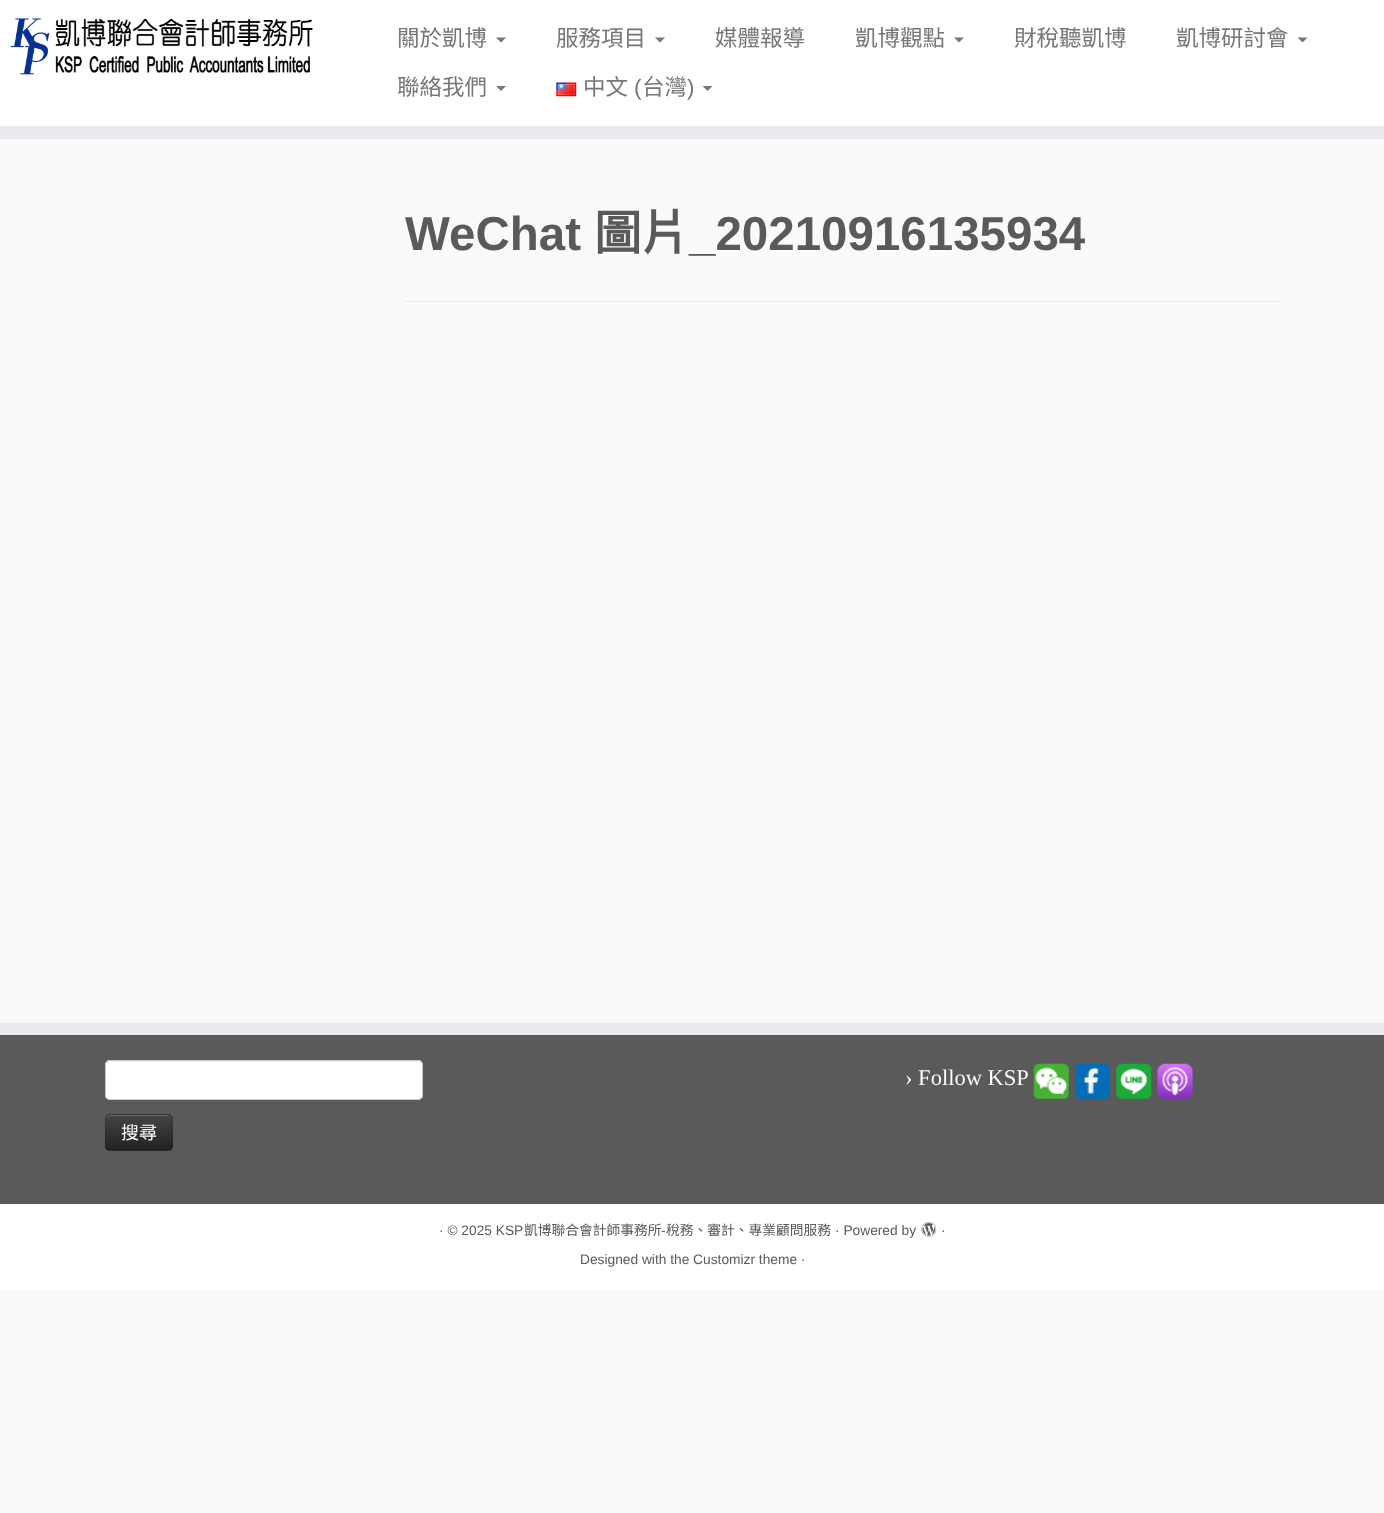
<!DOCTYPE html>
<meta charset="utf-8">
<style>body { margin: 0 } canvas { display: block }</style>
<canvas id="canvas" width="1384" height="1513"></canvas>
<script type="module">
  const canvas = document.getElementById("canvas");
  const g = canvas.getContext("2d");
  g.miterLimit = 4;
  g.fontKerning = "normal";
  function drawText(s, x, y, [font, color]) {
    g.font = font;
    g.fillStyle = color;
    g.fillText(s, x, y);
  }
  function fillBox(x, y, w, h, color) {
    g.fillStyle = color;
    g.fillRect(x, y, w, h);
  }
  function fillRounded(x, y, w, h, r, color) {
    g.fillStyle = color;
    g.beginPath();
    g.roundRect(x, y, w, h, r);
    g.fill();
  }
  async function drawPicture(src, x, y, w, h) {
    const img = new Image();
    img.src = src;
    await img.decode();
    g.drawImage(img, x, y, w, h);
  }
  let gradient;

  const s1 = ["22.5px Noto Sans CJK TC", "#777777"];
  const s2 = ["22.5px Liberation Sans", "#777777"];
  const s3 = ["bold 47.5px Liberation Sans", "#5A5A5A"];
  const s4 = ["bold 47.5px Noto Sans CJK TC", "#5A5A5A"];
  const s5 = ["22.5px Liberation Serif", "#FAFAFA"];
  const s6 = ["18px Noto Sans CJK TC", "#FAFAFA"];
  const s7 = ["13.75px Liberation Sans", "#5A5A5A"];
  const s8 = ["13.75px Noto Sans CJK TC", "#5A5A5A"];

  fillBox(0, 0, 1384, 1513, "#FAFAFA");
  fillBox(0, 0, 1384, 126, "#FFFFFF");
  fillBox(0, 126, 1384, 13, "#E9EAEE");
  await drawPicture("pic1.png", 10, 18, 303, 57);
  drawText("關於凱博", 397, 46, s1);
  g.beginPath();
  g.moveTo(496, 37.5);
  g.lineTo(506, 37.5);
  g.lineTo(501, 42.5);
  g.closePath();
  g.fill();
  drawText("服務項目", 556, 46, s1);
  g.beginPath();
  g.moveTo(655, 37.5);
  g.lineTo(665, 37.5);
  g.lineTo(660, 42.5);
  g.closePath();
  g.fill();
  drawText("媒體報導", 715, 46, s1);
  drawText("凱博觀點", 855, 46, s1);
  g.beginPath();
  g.moveTo(954, 37.5);
  g.lineTo(964, 37.5);
  g.lineTo(959, 42.5);
  g.closePath();
  g.fill();
  drawText("財稅聽凱博", 1014, 46, s1);
  drawText("凱博研討會", 1176, 46, s1);
  g.beginPath();
  g.moveTo(1297.5, 37.5);
  g.lineTo(1307.5, 37.5);
  g.lineTo(1302.5, 42.5);
  g.closePath();
  g.fill();
  drawText("聯絡我們", 397, 95, s1);
  g.beginPath();
  g.moveTo(496, 86);
  g.lineTo(506, 86);
  g.lineTo(501, 91);
  g.closePath();
  g.fill();
  await drawPicture("pic2.png", 556, 82, 21, 15);
  drawText("中文", 583, 95, s1);
  drawText("(", 634, 95, s2);
  drawText("台灣", 642, 95, s1);
  drawText(")", 687, 95, s2);
  g.beginPath();
  g.moveTo(702.5, 86);
  g.lineTo(712.5, 86);
  g.lineTo(707.5, 91);
  g.closePath();
  g.fill();
  drawText("WeChat", 405, 250, s3);
  drawText("圖片", 594, 250, s4);
  drawText("_20210916135934", 689, 250, s3);
  fillBox(405, 301, 875, 1, "#EEEEEE");
  fillBox(405, 303, 875, 1, "#FFFFFF");
  fillBox(0, 1035, 1384, 169, "#5A5A5A");
  fillBox(0, 1023, 1384, 12, "#E9EAEE");
  drawText("› Follow KSP", 905, 1085, s5);
  await drawPicture("pic3.png", 1033, 1063, 36, 36);
  await drawPicture("pic4.png", 1075, 1063, 35, 36);
  await drawPicture("pic5.png", 1116, 1063, 36, 36);
  await drawPicture("pic6.png", 1157, 1063, 36, 36);
  fillRounded(105, 1060, 318, 40, 5, "#FFFFFF");
  g.fillStyle = "#ECECEC";
  g.beginPath();
  g.moveTo(110, 1062);
  g.lineTo(418, 1062);
  g.bezierCurveTo(420, 1062, 421, 1064, 421, 1066);
  g.lineTo(421, 1065);
  g.bezierCurveTo(421, 1063, 419, 1061, 417, 1061);
  g.lineTo(110, 1061);
  g.bezierCurveTo(108, 1061, 106, 1063, 106, 1065);
  g.lineTo(106, 1066);
  g.bezierCurveTo(106, 1064, 108, 1062, 110, 1062);
  g.closePath();
  g.fill();
  g.beginPath();
  g.roundRect(105.5, 1060.5, 317, 39, 4.5);
  g.strokeStyle = "#CCCCCC";
  g.stroke();
  fillRounded(105, 1114, 68, 37, 5, "#363636");
  g.save();
  g.beginPath();
  g.roundRect(105, 1114, 68, 37, 5);
  g.clip();
  gradient = g.createLinearGradient(139, 1115, 139, 1150);
  gradient.addColorStop(0, "#444444");
  gradient.addColorStop(1, "#222222");
  g.fillStyle = gradient;
  g.fillRect(105, 1115, 68, 35);
  g.restore();
  g.fillStyle = "#696969";
  g.beginPath();
  g.moveTo(110, 1116);
  g.lineTo(168, 1116);
  g.bezierCurveTo(170, 1116, 171, 1118, 171, 1120);
  g.bezierCurveTo(171, 1113, 163, 1115, 158, 1115);
  g.lineTo(120, 1115);
  g.bezierCurveTo(114, 1115, 106, 1113, 106, 1120);
  g.bezierCurveTo(106, 1118, 108, 1116, 110, 1116);
  g.closePath();
  g.fill();
  g.beginPath();
  g.moveTo(170.5, 1149.5);
  g.bezierCurveTo(170, 1150, 168.5, 1150.5, 167.5, 1150.5);
  g.lineTo(110, 1150.5);
  g.bezierCurveTo(109, 1150.5, 107.5, 1150, 107, 1149.5);
  g.strokeStyle = "rgba(0, 0, 0, 0.25)";
  g.lineWidth = 1.2;
  g.stroke();
  g.beginPath();
  g.moveTo(107, 1149.5);
  g.bezierCurveTo(105, 1147.5, 105.5, 1144, 105.5, 1141.5);
  g.lineTo(105.5, 1132.5);
  g.bezierCurveTo(105.5, 1114.5, 102, 1114.5, 119.5, 1114.5);
  g.lineTo(158, 1114.5);
  g.bezierCurveTo(175.5, 1114.5, 172, 1114.5, 172, 1132.5);
  g.lineTo(172, 1141.5);
  g.bezierCurveTo(172, 1144, 172.5, 1147.5, 170.5, 1149.5);
  g.strokeStyle = "rgba(0, 0, 0, 0.1)";
  g.stroke();
  drawText("搜尋", 121, 1139, s6);
  fillBox(0, 1204, 1384, 86, "#FFFFFF");
  drawText("· © 2025 KSP", 439, 1235, s7);
  drawText("凱博聯合會計師事務所", 524, 1235, s8);
  drawText("-", 661, 1235, s7);
  drawText("稅務、審計、專業顧問服務", 666, 1235, s8);
  drawText("· Powered by", 835, 1235, s7);
  await drawPicture("pic7.png", 921, 1222, 16, 15);
  drawText("·", 941, 1235, s7);
  drawText("Designed with the Customizr theme ·", 580, 1264, s7);
</script>
